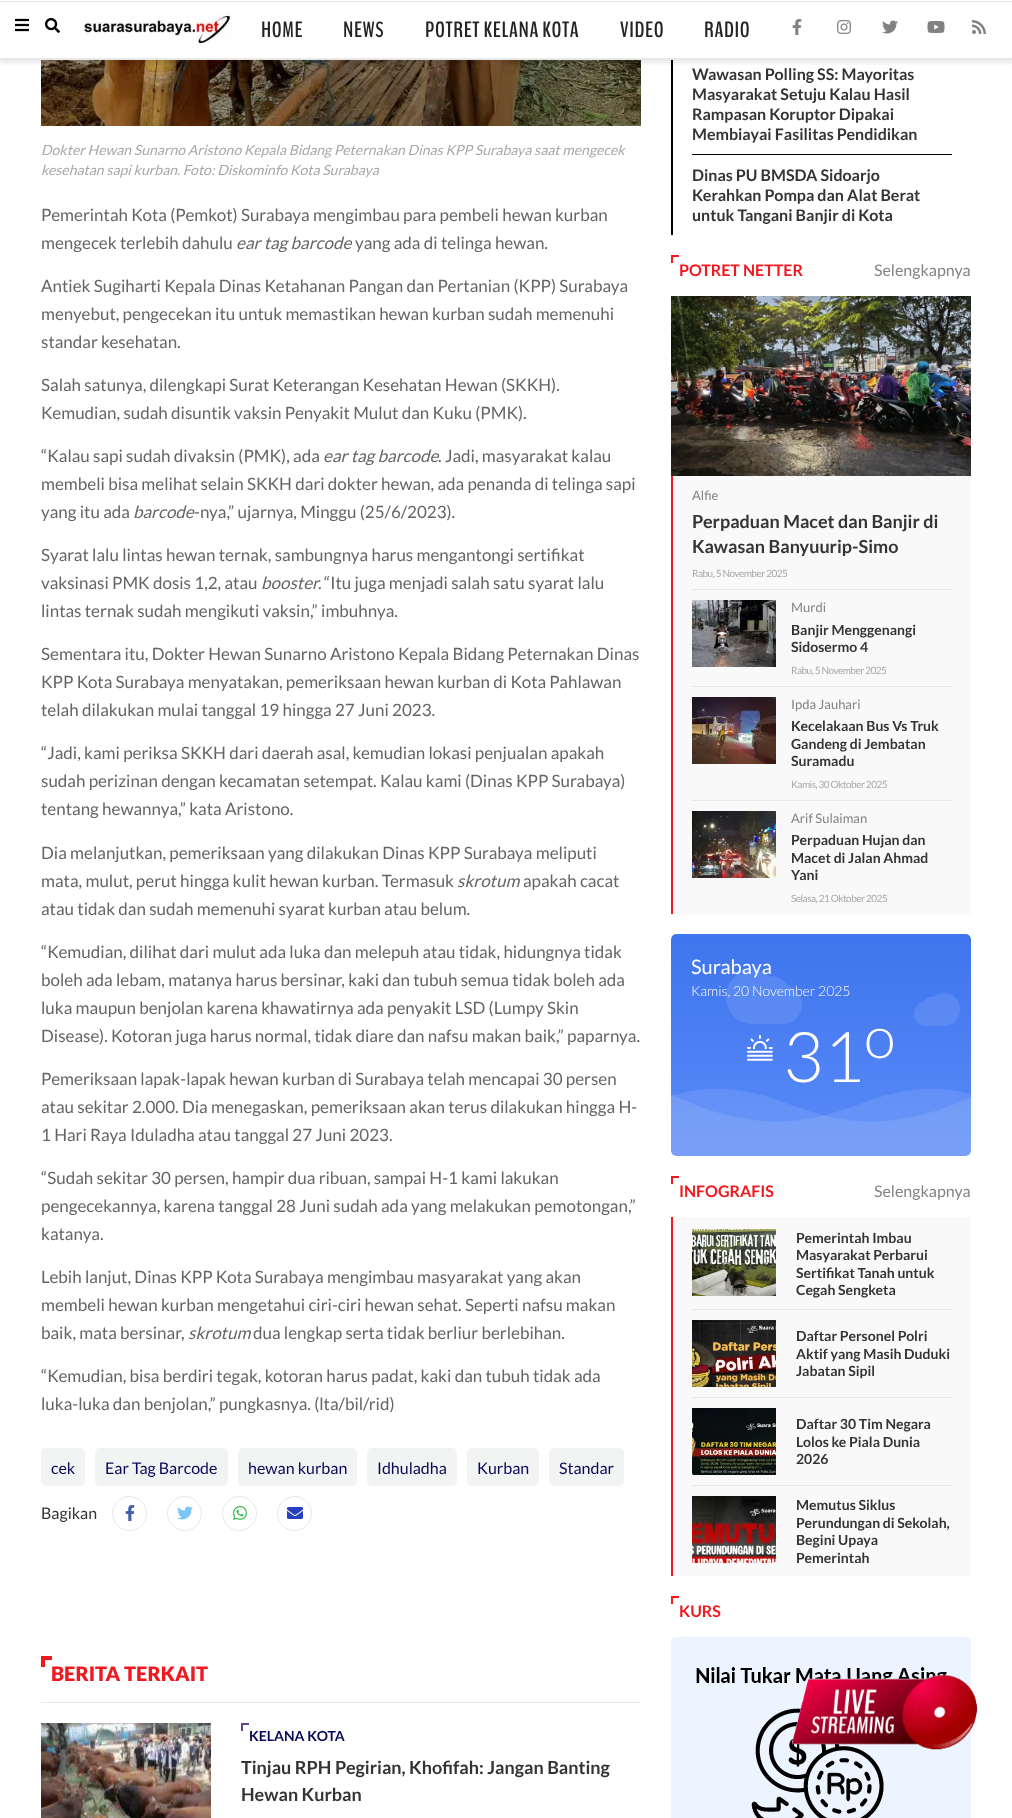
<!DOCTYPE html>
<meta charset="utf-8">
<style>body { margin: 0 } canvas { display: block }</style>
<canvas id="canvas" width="1012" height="1818"></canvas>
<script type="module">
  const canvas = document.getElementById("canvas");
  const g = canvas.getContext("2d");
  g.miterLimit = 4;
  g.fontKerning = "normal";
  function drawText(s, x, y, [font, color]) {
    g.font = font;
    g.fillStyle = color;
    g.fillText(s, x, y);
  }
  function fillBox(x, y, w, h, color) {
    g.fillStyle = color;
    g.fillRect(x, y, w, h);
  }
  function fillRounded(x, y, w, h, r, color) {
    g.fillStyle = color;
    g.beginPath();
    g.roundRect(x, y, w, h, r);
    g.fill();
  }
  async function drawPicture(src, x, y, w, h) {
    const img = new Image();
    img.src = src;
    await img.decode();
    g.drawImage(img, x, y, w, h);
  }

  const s1 = ["bold 22px BenchNine", "#242424"];
  const s2 = ["italic 14px Lato", "#A8A8A8"];
  const s3 = ["17px Lato", "#656565"];
  const s4 = ["italic 17px Lato", "#656565"];
  const s5 = ["16px Lato", "#080957"];
  const s6 = ["16px Lato", "#343434"];
  const s7 = ["900 20px Lato", "#F01920"];
  const s8 = ["bold 14px Lato", "#080957"];
  const s9 = ["bold 18px Lato", "#343434"];
  const s10 = ["bold 16px Lato", "#343434"];
  const s11 = ["bold 16px Lato", "#F01920"];
  const s12 = ["16px Lato", "#838383"];
  const s13 = ["13px Lato", "#838383"];
  const s14 = ["10px Lato", "#A8A8A8"];
  const s15 = ["bold 14px Lato", "#343434"];
  const s16 = ["20px Lato", "#FFFFFF"];
  const s17 = ["300 14px Lato", "#FFFFFF"];
  const s18 = ["300 70px Lato", "#FFFFFF"];
  const s19 = ["300 58px Lato", "#FFFFFF"];

  fillBox(0, 0, 1012, 1818, "#FFFFFF");
  fillBox(0, 1, 1012, 1, "#E8E8E8");
  await drawPicture("pic9.png", 41, 60, 600, 66);
  fillBox(671, 60, 2, 175, "#000000");
  g.save();
  g.beginPath();
  g.rect(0, 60, 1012, 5);
  g.clip();
  g.fillStyle = "rgba(0, 0, 0, 0.09)";
  g.filter = "blur(2px)";
  g.beginPath();
  g.rect(0, 5, 1012, 58);
  g.fill();
  g.filter = "none";
  g.restore();
  await drawPicture("pic1.png", 792, 19, 10, 16);
  await drawPicture("pic2.png", 837, 20, 14, 14);
  await drawPicture("pic3.png", 882, 20, 16, 14);
  await drawPicture("pic4.png", 927, 21, 18, 12);
  await drawPicture("pic5.png", 972, 20, 14, 14);
  fillBox(0, 58, 1012, 2, "#E8E8E8");
  await drawPicture("pic6.png", 15, 18, 14, 14);
  await drawPicture("pic7.png", 45, 18, 15, 15);
  await drawPicture("pic8.png", 84, 12, 148, 33);
  g.letterSpacing = "0.6px";
  drawText("HOME", 261, 37, s1);
  drawText("NEWS", 343, 37, s1);
  drawText("POTRET KELANA KOTA", 425, 37, s1);
  drawText("VIDEO", 620, 37, s1);
  drawText("RADIO", 704, 37, s1);
  g.letterSpacing = "0px";
  drawText("Dokter Hewan Sunarno Aristono Kepala Bidang Peternakan Dinas KPP Surabaya saat mengecek", 41, 155, s2);
  drawText("kesehatan sapi kurban. Foto: Diskominfo Kota Surabaya", 41, 175, s2);
  drawText("Pemerintah Kota (Pemkot) Surabaya mengimbau para pembeli hewan kurban", 41, 221, s3);
  drawText("mengecek terlebih dahulu", 41, 249, s3);
  drawText("ear tag barcode", 236, 249, s4);
  drawText("yang ada di telinga hewan.", 355, 249, s3);
  drawText("Antiek Sugiharti Kepala Dinas Ketahanan Pangan dan Pertanian (KPP) Surabaya", 41, 292, s3);
  drawText("menyebut, pengecekan itu untuk memastikan hewan kurban sudah memenuhi", 41, 320, s3);
  drawText("standar kesehatan.", 41, 348, s3);
  drawText("Salah satunya, dilengkapi Surat Keterangan Kesehatan Hewan (SKKH).", 41, 391, s3);
  drawText("Kemudian, sudah disuntik vaksin Penyakit Mulut dan Kuku (PMK).", 41, 419, s3);
  drawText("“Kalau sapi sudah divaksin (PMK), ada", 41, 462, s3);
  drawText("ear tag barcode", 323, 462, s4);
  drawText(". Jadi, masyarakat kalau", 438, 462, s3);
  drawText("membeli bisa melihat selain SKKH dari dokter hewan, ada penanda di telinga sapi", 41, 490, s3);
  drawText("yang itu ada", 41, 518, s3);
  drawText("barcode", 133, 518, s4);
  drawText("-nya,” ujarnya, Minggu (25/6/2023).", 194, 518, s3);
  drawText("Syarat lalu lintas hewan ternak, sambungnya harus mengantongi sertifikat", 41, 561, s3);
  drawText("vaksinasi PMK dosis 1,2, atau", 41, 589, s3);
  drawText("booster.", 261, 589, s4);
  drawText("“Itu juga menjadi salah satu syarat lalu", 324, 589, s3);
  drawText("lintas ternak sudah mengikuti vaksin,” imbuhnya.", 41, 617, s3);
  drawText("Sementara itu, Dokter Hewan Sunarno Aristono Kepala Bidang Peternakan Dinas", 41, 660, s3);
  drawText("KPP Kota Surabaya menyatakan, pemeriksaan hewan kurban di Kota Pahlawan", 41, 688, s3);
  drawText("telah dilakukan mulai tanggal 19 hingga 27 Juni 2023.", 41, 716, s3);
  drawText("“Jadi, kami periksa SKKH dari daerah asal, kemudian lokasi penjualan apakah", 41, 759, s3);
  drawText("sudah perizinan dengan kecamatan setempat. Kalau kami (Dinas KPP Surabaya)", 41, 787, s3);
  drawText("tentang hewannya,” kata Aristono.", 41, 815, s3);
  drawText("Dia melanjutkan, pemeriksaan yang dilakukan Dinas KPP Surabaya meliputi", 41, 859, s3);
  drawText("mata, mulut, perut hingga kulit hewan kurban. Termasuk", 41, 887, s3);
  drawText("skrotum", 457, 887, s4);
  drawText("apakah cacat", 523, 887, s3);
  drawText("atau tidak dan sudah memenuhi syarat kurban atau belum.", 41, 915, s3);
  drawText("“Kemudian, dilihat dari mulut ada luka dan melepuh atau tidak, hidungnya tidak", 41, 958, s3);
  drawText("boleh ada lebam, matanya harus bersinar, kaki dan tubuh semua tidak boleh ada", 41, 986, s3);
  drawText("luka maupun benjolan karena khawatirnya ada penyakit LSD (Lumpy Skin", 41, 1014, s3);
  drawText("Disease). Kotoran juga harus normal, tidak diare dan nafsu makan baik,” paparnya.", 41, 1042, s3);
  drawText("Pemeriksaan lapak-lapak hewan kurban di Surabaya telah mencapai 30 persen", 41, 1085, s3);
  drawText("atau sekitar 2.000. Dia menegaskan, pemeriksaan akan terus dilakukan hingga H-", 41, 1113, s3);
  drawText("1 Hari Raya Iduladha atau tanggal 27 Juni 2023.", 41, 1141, s3);
  drawText("“Sudah sekitar 30 persen, hampir dua ribuan, sampai H-1 kami lakukan", 41, 1184, s3);
  drawText("pengecekannya, karena tanggal 28 Juni sudah ada yang melakukan pemotongan,”", 41, 1212, s3);
  drawText("katanya.", 41, 1240, s3);
  drawText("Lebih lanjut, Dinas KPP Kota Surabaya mengimbau masyarakat yang akan", 41, 1283, s3);
  drawText("membeli hewan kurban mengetahui ciri-ciri hewan sehat. Seperti nafsu makan", 41, 1311, s3);
  drawText("baik, mata bersinar,", 41, 1339, s3);
  drawText("skrotum", 188, 1339, s4);
  drawText("dua lengkap serta tidak berliur berlebihan.", 253, 1339, s3);
  drawText("“Kemudian, bisa berdiri tegak, kotoran harus padat, kaki dan tubuh tidak ada", 41, 1382, s3);
  drawText("luka-luka dan benjolan,” pungkasnya. (lta/bil/rid)", 41, 1410, s3);
  fillRounded(41, 1448, 44, 38, 5, "#F2F3F3");
  drawText("cek", 51, 1474, s5);
  fillRounded(95, 1448, 133, 38, 5, "#F2F3F3");
  drawText("Ear Tag Barcode", 105, 1474, s5);
  fillRounded(238, 1448, 119, 38, 5, "#F2F3F3");
  drawText("hewan kurban", 248, 1474, s5);
  fillRounded(367, 1448, 90, 38, 5, "#F2F3F3");
  drawText("Idhuladha", 377, 1474, s5);
  fillRounded(467, 1448, 72, 38, 5, "#F2F3F3");
  drawText("Kurban", 477, 1474, s5);
  fillRounded(549, 1448, 75, 38, 5, "#F2F3F3");
  drawText("Standar", 559, 1474, s5);
  drawText("Bagikan", 41, 1519, s6);
  g.beginPath();
  g.arc(129.5, 1513.5, 17, 0, Math.PI * 2);
  g.strokeStyle = "#E8E8E8";
  g.stroke();
  await drawPicture("pic10.png", 125, 1505, 10, 16);
  g.beginPath();
  g.arc(184.5, 1513.5, 17, 0, Math.PI * 2);
  g.stroke();
  await drawPicture("pic11.png", 177, 1506, 16, 14);
  g.beginPath();
  g.arc(239.5, 1513.5, 17, 0, Math.PI * 2);
  g.stroke();
  await drawPicture("pic12.png", 233, 1506, 14, 14);
  g.beginPath();
  g.arc(294.5, 1513.5, 17, 0, Math.PI * 2);
  g.stroke();
  await drawPicture("pic13.png", 287, 1507, 16, 12);
  fillBox(41, 1656, 11, 4, "#F01920");
  fillBox(41, 1656, 4, 11, "#F01920");
  drawText("BERITA TERKAIT", 51, 1681, s7);
  fillBox(41, 1702, 600, 1, "#E8E8E8");
  await drawPicture("pic14.png", 41, 1723, 170, 95);
  fillBox(241, 1723, 8, 2, "#654786");
  fillBox(241, 1723, 2, 8, "#654786");
  drawText("KELANA KOTA", 249, 1741, s8);
  drawText("Tinjau RPH Pegirian, Khofifah: Jangan Banting", 241, 1774, s9);
  drawText("Hewan Kurban", 241, 1801, s9);
  fillBox(692, 154, 260, 1, "#000000");
  drawText("Wawasan Polling SS: Mayoritas", 692, 80, s10);
  drawText("Masyarakat Setuju Kalau Hasil", 692, 100, s10);
  drawText("Rampasan Koruptor Dipakai", 692, 120, s10);
  drawText("Membiayai Fasilitas Pendidikan", 692, 140, s10);
  drawText("Dinas PU BMSDA Sidoarjo", 692, 181, s10);
  drawText("Kerahkan Pompa dan Alat Berat", 692, 201, s10);
  drawText("untuk Tangani Banjir di Kota", 692, 221, s10);
  fillBox(671, 255, 8, 2, "#F01920");
  fillBox(671, 255, 2, 8, "#F01920");
  drawText("POTRET NETTER", 679, 276, s11);
  drawText("Selengkapnya", 874, 276, s12);
  await drawPicture("pic15.png", 671, 296, 300, 180);
  fillBox(673, 476, 298, 438, "#F9F9F9");
  fillBox(671, 476, 2, 438, "#F01920");
  fillBox(692, 589, 260, 1, "#E8E8E8");
  drawText("Alfie", 692, 500, s13);
  drawText("Perpaduan Macet dan Banjir di", 692, 528, s9);
  drawText("Kawasan Banyuurip-Simo", 692, 553, s9);
  g.letterSpacing = "-0.5px";
  drawText("Rabu, 5 November 2025", 692, 577, s14);
  fillBox(692, 686, 260, 1, "#E8E8E8");
  await drawPicture("pic16.png", 692, 600, 84, 67);
  g.letterSpacing = "0px";
  drawText("Murdi", 791, 612, s13);
  drawText("Banjir Menggenangi", 791, 635, s15);
  drawText("Sidosermo 4", 791, 652, s15);
  g.letterSpacing = "-0.5px";
  drawText("Rabu, 5 November 2025", 791, 674, s14);
  fillBox(692, 800, 260, 1, "#E8E8E8");
  await drawPicture("pic17.png", 692, 697, 84, 67);
  g.letterSpacing = "0px";
  drawText("Ipda Jauhari", 791, 709, s13);
  drawText("Kecelakaan Bus Vs Truk", 791, 731, s15);
  drawText("Gandeng di Jembatan", 791, 749, s15);
  drawText("Suramadu", 791, 766, s15);
  g.letterSpacing = "-0.5px";
  drawText("Kamis, 30 Oktober 2025", 791, 788, s14);
  await drawPicture("pic18.png", 692, 811, 84, 67);
  g.letterSpacing = "0px";
  drawText("Arif Sulaiman", 791, 823, s13);
  drawText("Perpaduan Hujan dan", 791, 845, s15);
  drawText("Macet di Jalan Ahmad", 791, 863, s15);
  drawText("Yani", 791, 880, s15);
  g.letterSpacing = "-0.5px";
  drawText("Selasa, 21 Oktober 2025", 791, 902, s14);
  await drawPicture("pic19.png", 671, 934, 300, 222);
  g.letterSpacing = "0px";
  drawText("Surabaya", 691, 974, s16);
  drawText("Kamis, 20 November 2025", 691, 996, s17);
  await drawPicture("pic20.png", 747, 1035, 26, 26);
  drawText("31", 783, 1082, s18);
  drawText("o", 864, 1058, s19);
  fillBox(671, 1176, 8, 2, "#F01920");
  fillBox(671, 1176, 2, 8, "#F01920");
  drawText("INFOGRAFIS", 679, 1197, s11);
  drawText("Selengkapnya", 874, 1197, s12);
  fillBox(673, 1217, 298, 359, "#F9F9F9");
  fillBox(671, 1217, 2, 359, "#F01920");
  fillBox(692, 1309, 260, 1, "#E8E8E8");
  await drawPicture("pic21.png", 692, 1229, 84, 67);
  drawText("Pemerintah Imbau", 796, 1243, s15);
  drawText("Masyarakat Perbarui", 796, 1260, s15);
  drawText("Sertifikat Tanah untuk", 796, 1278, s15);
  drawText("Cegah Sengketa", 796, 1295, s15);
  fillBox(692, 1397, 260, 1, "#E8E8E8");
  await drawPicture("pic22.png", 692, 1320, 84, 67);
  drawText("Daftar Personel Polri", 796, 1341, s15);
  drawText("Aktif yang Masih Duduki", 796, 1359, s15);
  drawText("Jabatan Sipil", 796, 1376, s15);
  fillBox(692, 1485, 260, 1, "#E8E8E8");
  await drawPicture("pic23.png", 692, 1408, 84, 67);
  drawText("Daftar 30 Tim Negara", 796, 1429, s15);
  drawText("Lolos ke Piala Dunia", 796, 1447, s15);
  drawText("2026", 796, 1464, s15);
  await drawPicture("pic24.png", 692, 1496, 84, 67);
  drawText("Memutus Siklus", 796, 1510, s15);
  drawText("Perundungan di Sekolah,", 796, 1528, s15);
  drawText("Begini Upaya", 796, 1545, s15);
  drawText("Pemerintah", 796, 1563, s15);
  fillBox(671, 1596, 8, 2, "#F01920");
  fillBox(671, 1596, 2, 8, "#F01920");
  drawText("KURS", 679, 1617, s11);
  await drawPicture("pic25.png", 671, 1637, 300, 181);
  await drawPicture("pic26.png", 792, 1675, 186, 75);
</script>
